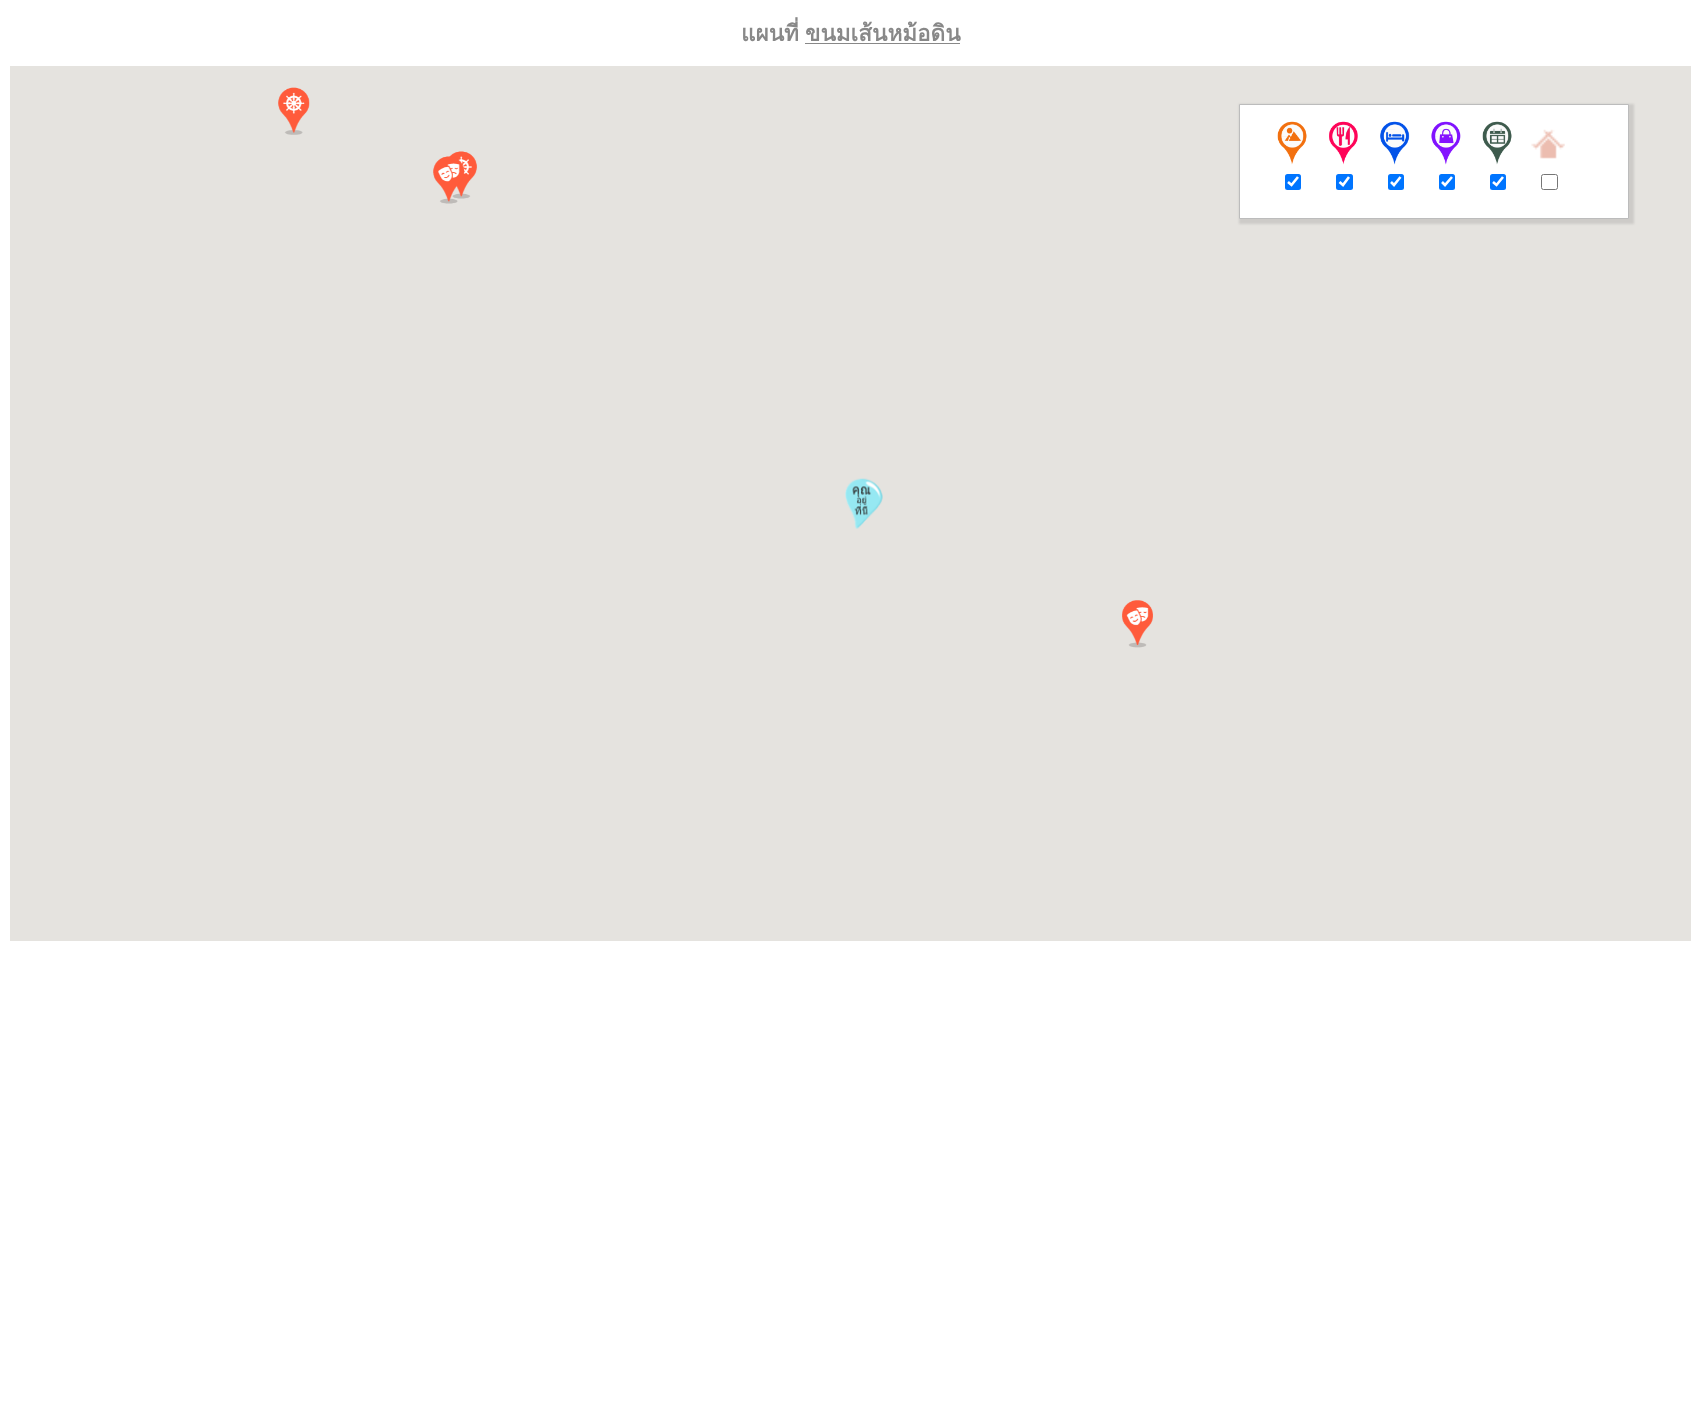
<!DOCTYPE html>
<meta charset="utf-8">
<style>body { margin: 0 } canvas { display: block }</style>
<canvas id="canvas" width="1701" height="1410"></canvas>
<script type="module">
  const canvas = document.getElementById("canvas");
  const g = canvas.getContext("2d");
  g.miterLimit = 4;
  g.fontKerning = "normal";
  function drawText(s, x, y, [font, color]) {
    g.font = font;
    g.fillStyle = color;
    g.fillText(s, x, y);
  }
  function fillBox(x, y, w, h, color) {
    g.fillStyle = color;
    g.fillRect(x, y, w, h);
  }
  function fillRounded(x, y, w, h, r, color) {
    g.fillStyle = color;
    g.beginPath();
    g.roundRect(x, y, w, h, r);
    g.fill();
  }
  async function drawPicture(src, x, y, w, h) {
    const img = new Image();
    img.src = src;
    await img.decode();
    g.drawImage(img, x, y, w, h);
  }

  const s1 = ["bold 22.5px Loma", "#888888"];

  fillBox(0, 0, 1701, 1410, "#FFFFFF");
  drawText("แผนที่", 741, 41, s1);
  drawText("ขนมเส้นหม้อดิน", 805, 41, s1);
  fillBox(805, 43, 155, 1, "#888888");
  fillBox(10, 66, 1681, 875, "#E5E3DF");
  await drawPicture("pic1.png", 278, 87, 32, 48);
  await drawPicture("pic2.png", 449, 151, 28, 48);
  await drawPicture("pic3.png", 433, 156, 32, 48);
  await drawPicture("pic4.png", 845, 478, 38, 51);
  await drawPicture("pic5.png", 1122, 600, 31, 48);
  g.fillStyle = "rgba(0, 0, 0, 0.1)";
  g.filter = "blur(1px)";
  g.beginPath();
  g.rect(1239, 104, 395, 120);
  g.fill();
  g.filter = "none";
  g.fillStyle = "#FFFFFF";
  g.beginPath();
  g.rect(1239.5, 104.5, 389, 114);
  g.fill();
  g.strokeStyle = "#BCBCBC";
  g.stroke();
  await drawPicture("pic6.png", 1277, 121, 30, 44);
  fillRounded(1285, 174, 16, 16, 2.5, "#0075FF");
  g.beginPath();
  g.moveTo(1288, 182);
  g.lineTo(1291.5, 185);
  g.lineTo(1298, 177);
  g.strokeStyle = "#FFFFFF";
  g.lineWidth = 2.6;
  g.stroke();
  await drawPicture("pic7.png", 1329, 121, 29, 44);
  fillRounded(1336, 174, 17, 16, 2.5, "#0075FF");
  g.beginPath();
  g.moveTo(1339.5, 182);
  g.lineTo(1343, 185);
  g.lineTo(1349, 177);
  g.stroke();
  await drawPicture("pic8.png", 1380, 121, 30, 44);
  fillRounded(1388, 174, 16, 16, 2.5, "#0075FF");
  g.beginPath();
  g.moveTo(1391, 182);
  g.lineTo(1394, 185);
  g.lineTo(1400.5, 177);
  g.stroke();
  await drawPicture("pic9.png", 1431, 121, 30, 44);
  fillRounded(1439, 174, 16, 16, 2.5, "#0075FF");
  g.beginPath();
  g.moveTo(1442, 182);
  g.lineTo(1445, 185);
  g.lineTo(1452, 177);
  g.stroke();
  await drawPicture("pic10.png", 1482, 121, 30, 44);
  fillRounded(1490, 174, 16, 16, 2.5, "#0075FF");
  g.beginPath();
  g.moveTo(1493, 182);
  g.lineTo(1496.5, 185);
  g.lineTo(1503, 177);
  g.stroke();
  await drawPicture("pic11.png", 1531, 129, 34, 30);
  g.beginPath();
  g.roundRect(1541.5, 174.5, 16, 15, 2);
  g.strokeStyle = "#767676";
  g.lineWidth = 1;
  g.stroke();
</script>
